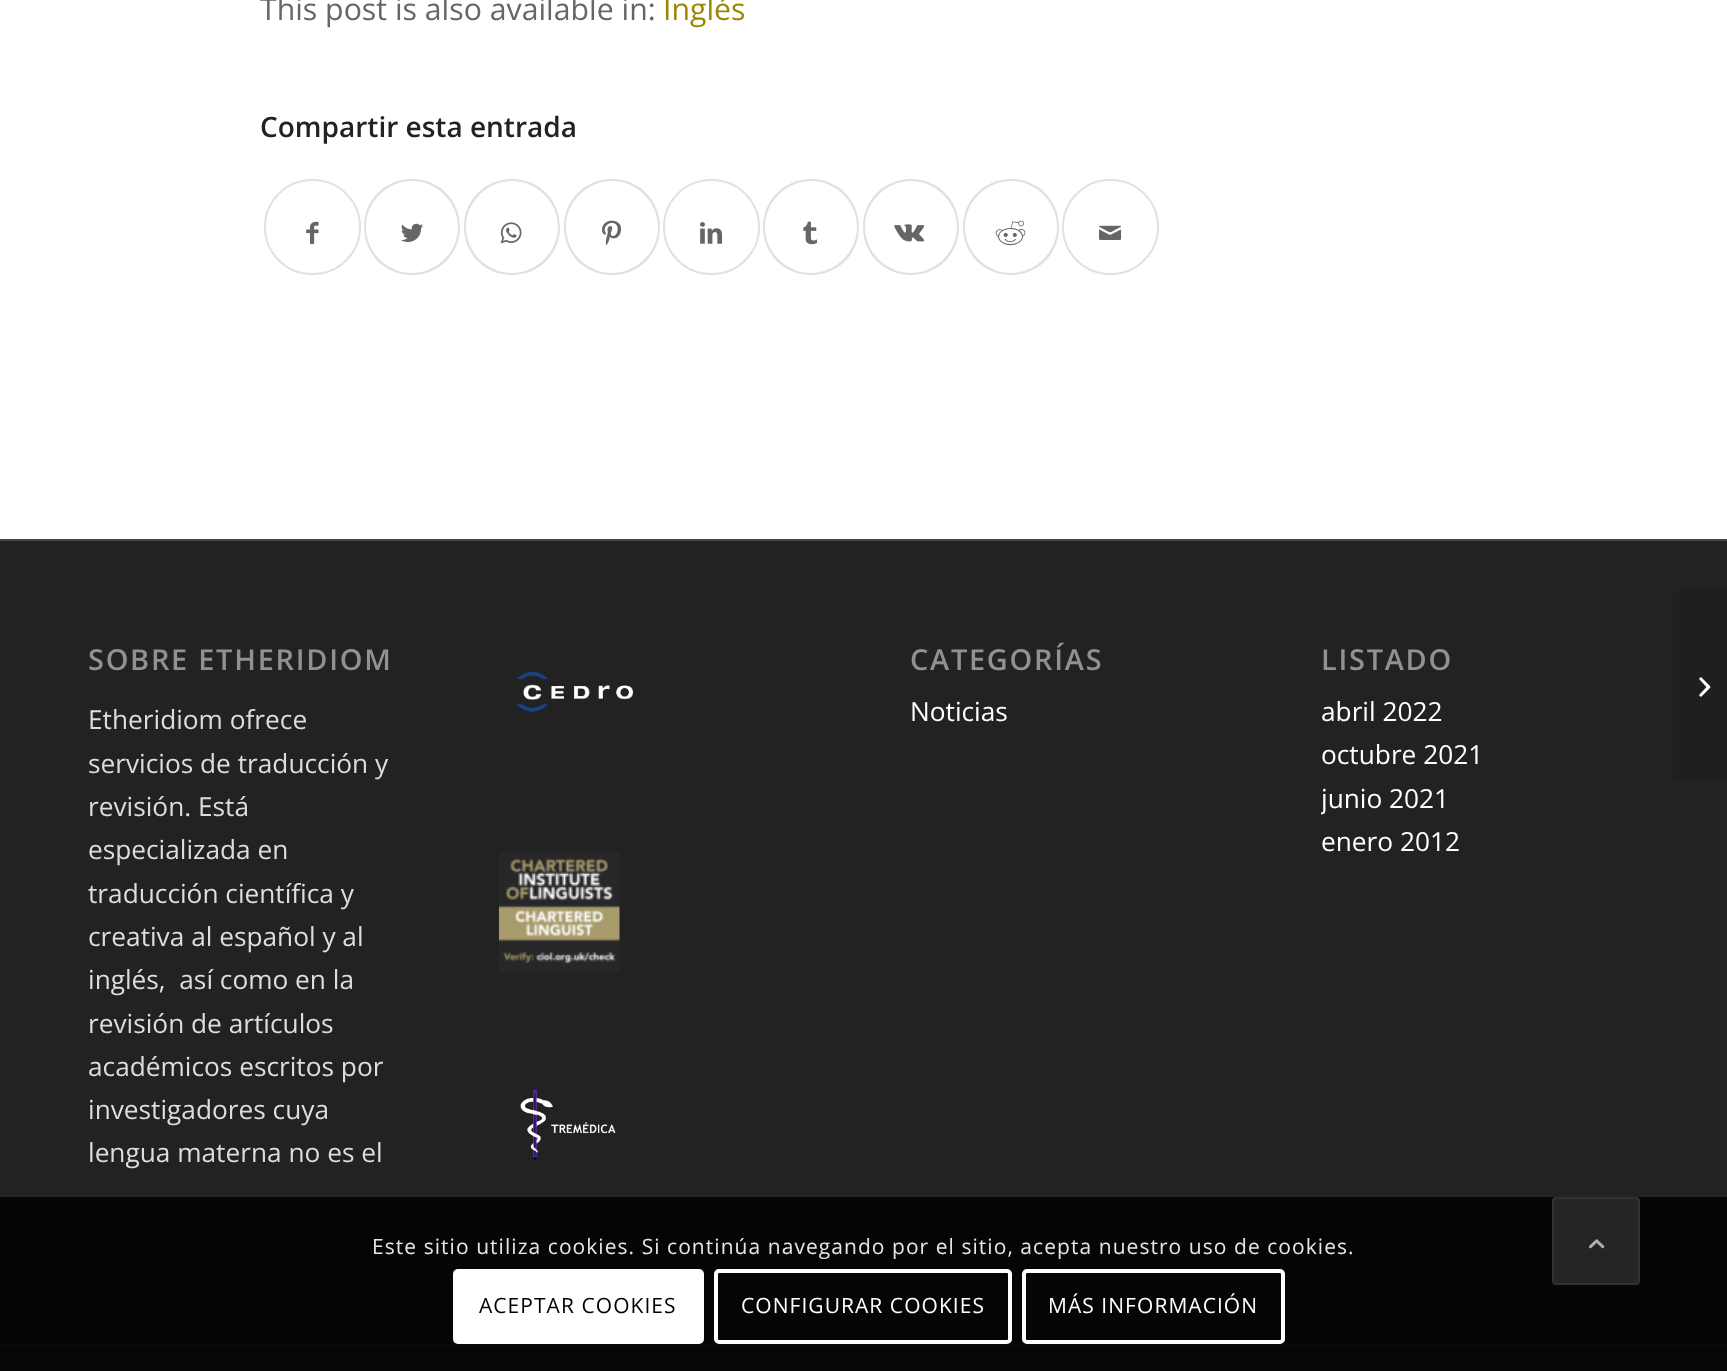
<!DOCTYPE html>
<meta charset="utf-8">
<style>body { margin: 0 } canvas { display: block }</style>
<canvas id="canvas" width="1727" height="1371"></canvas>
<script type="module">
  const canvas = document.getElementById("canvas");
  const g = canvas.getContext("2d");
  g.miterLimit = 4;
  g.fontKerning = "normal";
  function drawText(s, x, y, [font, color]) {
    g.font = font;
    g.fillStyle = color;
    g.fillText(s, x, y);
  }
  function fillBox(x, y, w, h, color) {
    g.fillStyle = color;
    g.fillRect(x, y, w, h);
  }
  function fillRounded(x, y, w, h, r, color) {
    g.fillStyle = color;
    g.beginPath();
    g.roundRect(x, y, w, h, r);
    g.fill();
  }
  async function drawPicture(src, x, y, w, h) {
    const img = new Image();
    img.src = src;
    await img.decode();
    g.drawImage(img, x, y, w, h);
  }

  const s1 = ["30.25px Open Sans", "#666666"];
  const s2 = ["30.25px Open Sans", "#9C8702"];
  const s3 = ["600 28px Open Sans", "#222222"];
  const s4 = ["600 28.9px Open Sans", "#919191"];
  const s5 = ["26.25px Open Sans", "#DDDDDD"];
  const s6 = ["26.25px Open Sans", "#FFFFFF"];
  const s7 = ["21px Open Sans", "#E6E6E6"];
  const s8 = ["21px Open Sans", "#000000"];
  const s9 = ["21px Open Sans", "#FFFFFF"];

  fillBox(0, 0, 1727, 1371, "#FFFFFF");
  drawText("This post is also available in:", 260, 20, s1);
  drawText("Inglés", 663, 20, s2);
  drawText("Compartir esta entrada", 260, 137, s3);
  g.beginPath();
  g.roundRect(265, 180, 95, 94, 47);
  g.strokeStyle = "#E1E1E1";
  g.lineWidth = 2;
  g.stroke();
  await drawPicture("pic1.png", 306, 221, 13, 23);
  g.fillStyle = "#E1E1E1";
  g.beginPath();
  g.moveTo(412, 179);
  g.bezierCurveTo(439, 179, 460, 200, 460, 227);
  g.bezierCurveTo(460, 254, 439, 275, 412, 275);
  g.bezierCurveTo(385, 275, 364, 254, 364, 227);
  g.bezierCurveTo(364, 200, 385, 179, 412, 179);
  g.closePath();
  g.moveTo(412, 181);
  g.bezierCurveTo(387, 181, 366, 202, 366, 227);
  g.bezierCurveTo(366, 252, 387, 273, 412, 273);
  g.bezierCurveTo(437, 273, 458, 252, 458, 227);
  g.bezierCurveTo(458, 202, 437, 181, 412, 181);
  g.closePath();
  g.fill("evenodd");
  await drawPicture("pic2.png", 401, 223, 23, 19);
  g.beginPath();
  g.moveTo(512, 179);
  g.bezierCurveTo(539, 179, 560, 200, 560, 227);
  g.bezierCurveTo(560, 254, 539, 275, 512, 275);
  g.bezierCurveTo(485, 275, 464, 254, 464, 227);
  g.bezierCurveTo(464, 200, 485, 179, 512, 179);
  g.closePath();
  g.moveTo(512, 181);
  g.bezierCurveTo(487, 181, 466, 202, 466, 227);
  g.bezierCurveTo(466, 252, 487, 273, 512, 273);
  g.bezierCurveTo(537, 273, 558, 252, 558, 227);
  g.bezierCurveTo(558, 202, 537, 181, 512, 181);
  g.closePath();
  g.fill("evenodd");
  await drawPicture("pic3.png", 500, 222, 22, 22);
  g.beginPath();
  g.moveTo(612, 179);
  g.bezierCurveTo(639, 179, 660, 200, 660, 227);
  g.bezierCurveTo(660, 254, 639, 275, 612, 275);
  g.bezierCurveTo(585, 275, 564, 254, 564, 227);
  g.bezierCurveTo(564, 200, 585, 179, 612, 179);
  g.closePath();
  g.moveTo(612, 181);
  g.bezierCurveTo(587, 181, 566, 202, 566, 227);
  g.bezierCurveTo(566, 252, 587, 273, 612, 273);
  g.bezierCurveTo(637, 273, 658, 252, 658, 227);
  g.bezierCurveTo(658, 202, 637, 181, 612, 181);
  g.closePath();
  g.fill("evenodd");
  await drawPicture("pic4.png", 602, 220, 20, 25);
  g.beginPath();
  g.roundRect(664, 180, 95, 94, 47);
  g.stroke();
  await drawPicture("pic5.png", 700, 222, 23, 22);
  g.beginPath();
  g.moveTo(811, 179);
  g.bezierCurveTo(838, 179, 859, 200, 859, 227);
  g.bezierCurveTo(859, 254, 838, 275, 811, 275);
  g.bezierCurveTo(784, 275, 763, 254, 763, 227);
  g.bezierCurveTo(763, 200, 784, 179, 811, 179);
  g.closePath();
  g.moveTo(811, 181);
  g.bezierCurveTo(786, 181, 765, 202, 765, 227);
  g.bezierCurveTo(765, 252, 786, 273, 811, 273);
  g.bezierCurveTo(836, 273, 857, 252, 857, 227);
  g.bezierCurveTo(857, 202, 836, 181, 811, 181);
  g.closePath();
  g.fill("evenodd");
  await drawPicture("pic6.png", 803, 221, 14, 24);
  g.beginPath();
  g.moveTo(911, 179);
  g.bezierCurveTo(938, 179, 959, 200, 959, 227);
  g.bezierCurveTo(959, 254, 938, 275, 911, 275);
  g.bezierCurveTo(884, 275, 863, 254, 863, 227);
  g.bezierCurveTo(863, 200, 884, 179, 911, 179);
  g.closePath();
  g.moveTo(911, 181);
  g.bezierCurveTo(886, 181, 865, 202, 865, 227);
  g.bezierCurveTo(865, 252, 886, 273, 911, 273);
  g.bezierCurveTo(936, 273, 957, 252, 957, 227);
  g.bezierCurveTo(957, 202, 936, 181, 911, 181);
  g.closePath();
  g.fill("evenodd");
  await drawPicture("pic7.png", 894, 224, 31, 18);
  g.beginPath();
  g.moveTo(1011, 179);
  g.bezierCurveTo(1038, 179, 1059, 200, 1059, 227);
  g.bezierCurveTo(1059, 254, 1038, 275, 1011, 275);
  g.bezierCurveTo(984, 275, 963, 254, 963, 227);
  g.bezierCurveTo(963, 200, 984, 179, 1011, 179);
  g.closePath();
  g.moveTo(1011, 181);
  g.bezierCurveTo(986, 181, 965, 202, 965, 227);
  g.bezierCurveTo(965, 252, 986, 273, 1011, 273);
  g.bezierCurveTo(1036, 273, 1057, 252, 1057, 227);
  g.bezierCurveTo(1057, 202, 1036, 181, 1011, 181);
  g.closePath();
  g.fill("evenodd");
  await drawPicture("pic8.png", 995, 220, 31, 26);
  g.beginPath();
  g.roundRect(1063, 180, 95, 94, 47);
  g.stroke();
  await drawPicture("pic9.png", 1099, 225, 23, 15);
  fillBox(0, 541, 1727, 803, "#222222");
  fillBox(0, 539, 1727, 2, "#444444");
  g.letterSpacing = "1.75px";
  drawText("SOBRE ETHERIDIOM", 88, 670, s4);
  g.letterSpacing = "0px";
  drawText("Etheridiom ofrece", 88, 729, s5);
  drawText("servicios de traducción y", 88, 773, s5);
  drawText("revisión. Está", 88, 816, s5);
  drawText("especializada en", 88, 859, s5);
  drawText("traducción científica y", 88, 903, s5);
  drawText("creativa al español y al", 88, 946, s5);
  drawText("inglés,  así como en la", 88, 989, s5);
  drawText("revisión de artículos", 88, 1033, s5);
  drawText("académicos escritos por", 88, 1076, s5);
  drawText("investigadores cuya", 88, 1119, s5);
  drawText("lengua materna no es el", 88, 1162, s5);
  await drawPicture("pic10.png", 517, 671, 116, 41);
  await drawPicture("pic11.png", 498, 853, 122, 120);
  await drawPicture("pic12.png", 520, 1090, 96, 73);
  g.letterSpacing = "1.75px";
  drawText("CATEGORÍAS", 910, 670, s4);
  g.letterSpacing = "0px";
  drawText("Noticias", 910, 721, s6);
  g.letterSpacing = "1.75px";
  drawText("LISTADO", 1321, 670, s4);
  g.letterSpacing = "0px";
  drawText("abril 2022", 1321, 721, s6);
  drawText("octubre 2021", 1321, 764, s6);
  g.save();
  g.beginPath();
  g.rect(1321, 620, 319, 243);
  g.clip();
  drawText("junio 2021", 1321, 808, s6);
  g.restore();
  drawText("enero 2012", 1321, 851, s6);
  fillBox(0, 1346, 1727, 25, "#333333");
  fillBox(0, 1344, 1727, 2, "#444444");
  g.fillStyle = "#1F1F1F";
  g.beginPath();
  g.roundRect(1673, 590, 54, 192, [7, 0, 0, 7]);
  g.fill();
  await drawPicture("pic13.png", 1699, 677, 12, 20);
  fillBox(0, 1197, 1727, 174, "rgba(0, 0, 0, 0.85)");
  g.letterSpacing = "1.05px";
  drawText("Este sitio utiliza cookies. Si continúa navegando por el sitio, acepta nuestro uso de cookies.", 372, 1254, s7);
  fillRounded(453, 1269, 251, 75, 5, "#FFFFFF");
  drawText("ACEPTAR COOKIES", 479, 1313, s8);
  g.beginPath();
  g.roundRect(716, 1271, 294, 71, 3);
  g.strokeStyle = "#FFFFFF";
  g.lineWidth = 4;
  g.stroke();
  drawText("CONFIGURAR COOKIES", 741, 1313, s9);
  g.beginPath();
  g.roundRect(1024, 1271, 259, 71, 3);
  g.stroke();
  drawText("MÁS INFORMACIÓN", 1048, 1313, s9);
  g.fillStyle = "#252525";
  g.beginPath();
  g.roundRect(1553, 1198, 86, 86, 3);
  g.fill();
  g.strokeStyle = "#313131";
  g.lineWidth = 2;
  g.stroke();
  await drawPicture("pic14.png", 1589, 1239, 16, 10);
</script>
